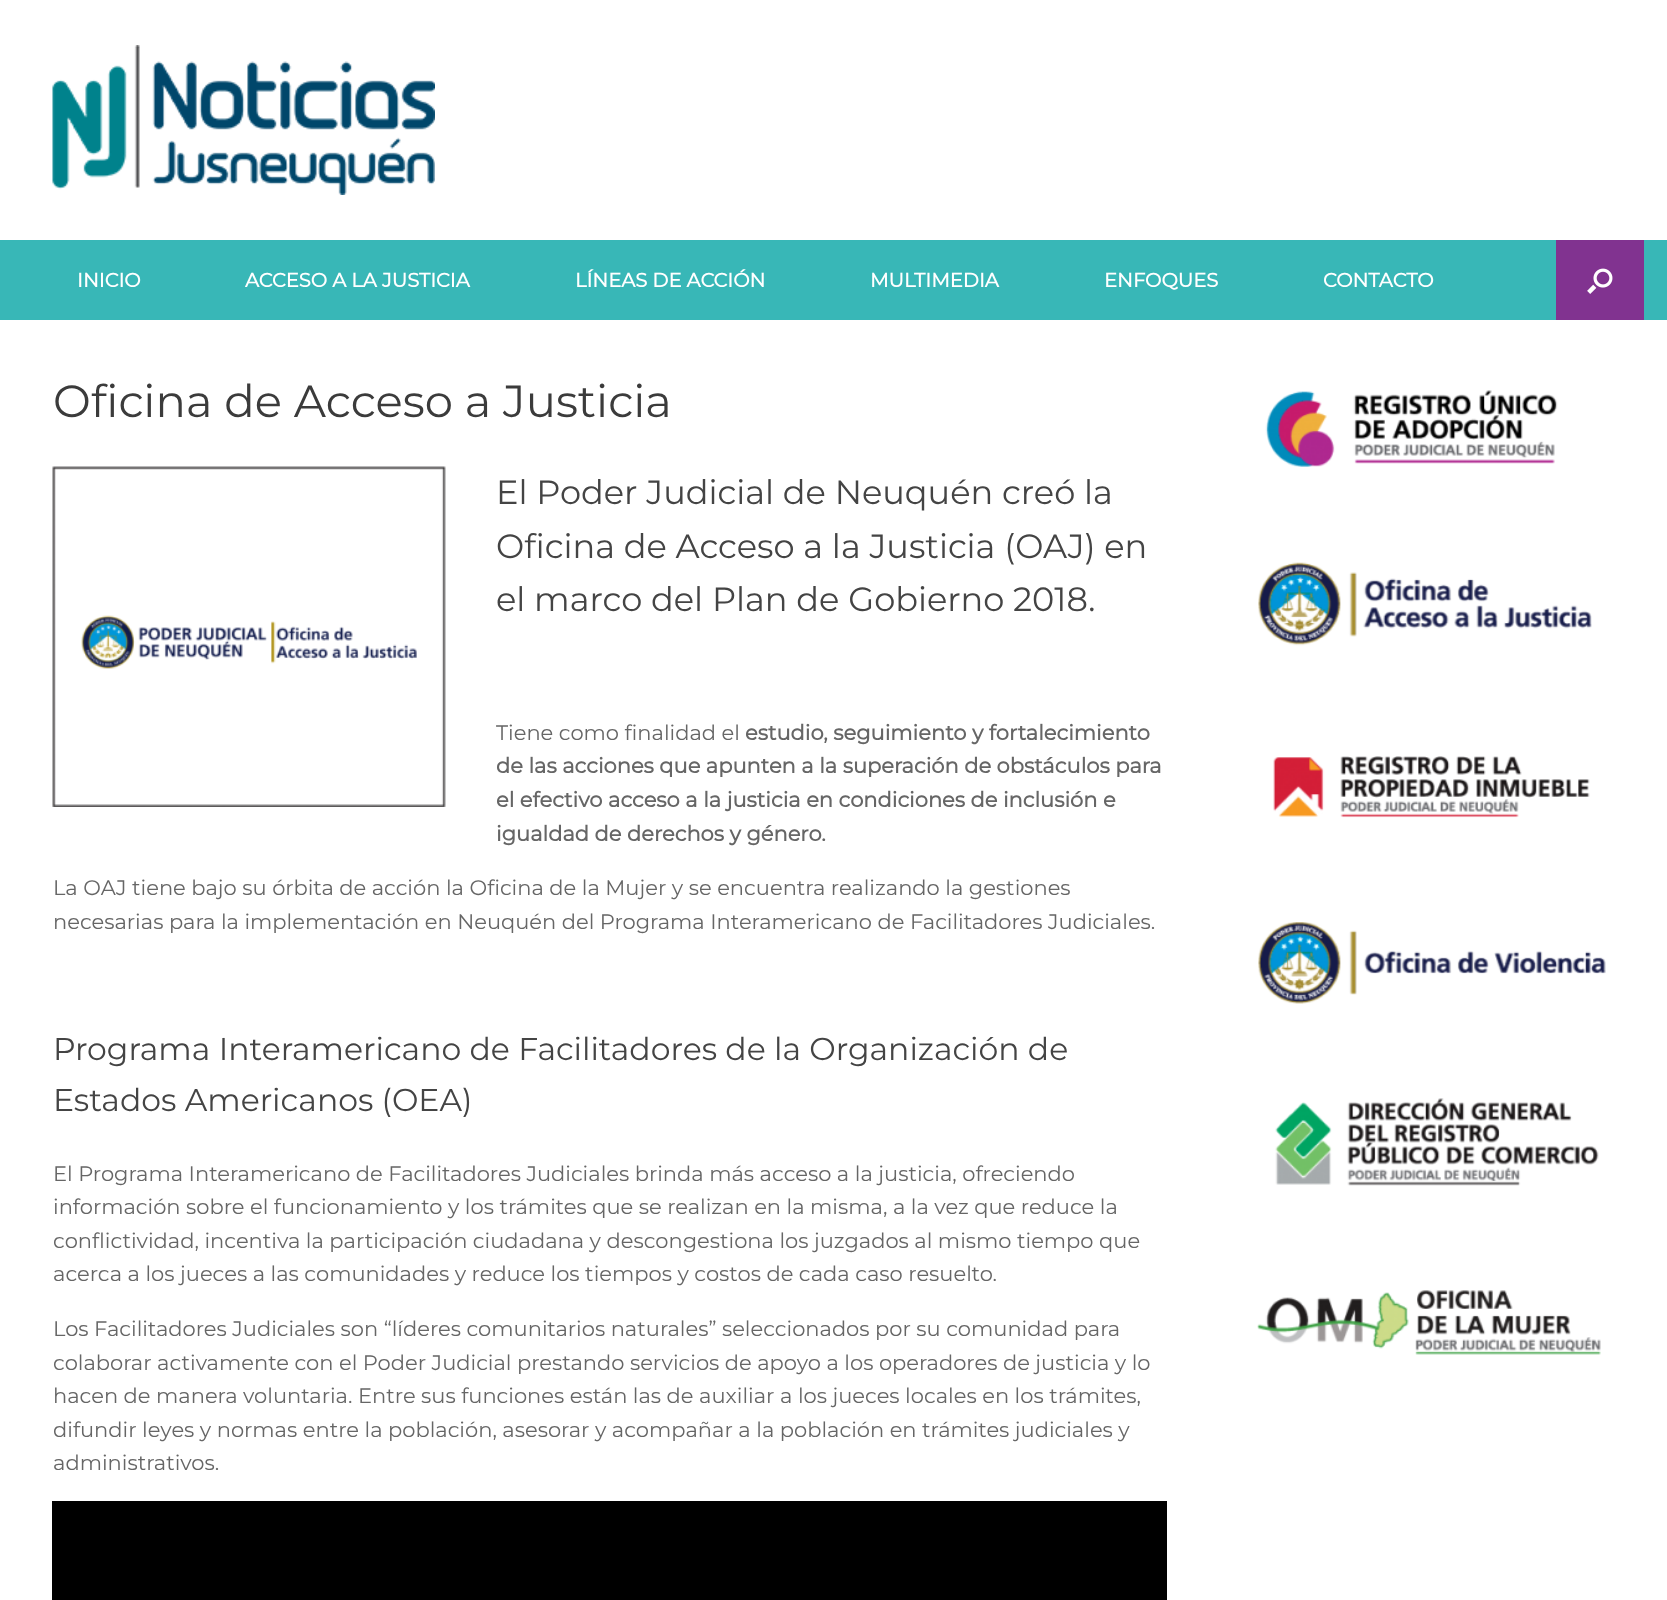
<!DOCTYPE html>
<meta charset="utf-8">
<style>body { margin: 0 } canvas { display: block }</style>
<canvas id="canvas" width="1667" height="1600"></canvas>
<script type="module">
  const canvas = document.getElementById("canvas");
  const g = canvas.getContext("2d");
  g.miterLimit = 4;
  g.fontKerning = "normal";
  function drawText(s, x, y, [font, color]) {
    g.font = font;
    g.fillStyle = color;
    g.fillText(s, x, y);
  }
  function fillBox(x, y, w, h, color) {
    g.fillStyle = color;
    g.fillRect(x, y, w, h);
  }
  async function drawPicture(src, x, y, w, h) {
    const img = new Image();
    img.src = src;
    await img.decode();
    g.drawImage(img, x, y, w, h);
  }

  const s1 = ["bold 19.5px Montserrat", "#FFFFFF"];
  const s2 = ["100 45px Montserrat", "#3B3B3B"];
  const s3 = ["100 33.6px Montserrat", "#444444"];
  const s4 = ["100 21px Montserrat", "#666666"];
  const s5 = ["bold 21px Montserrat", "#666666"];
  const s6 = ["100 31.5px Montserrat", "#444444"];

  fillBox(0, 0, 1667, 1600, "#FFFFFF");
  await drawPicture("pic1.png", 52, 45, 383, 150);
  fillBox(0, 240, 1667, 80, "#38B7B7");
  drawText("INICIO", 77, 287, s1);
  drawText("ACCESO A LA JUSTICIA", 245, 287, s1);
  drawText("LÍNEAS DE ACCIÓN", 575, 287, s1);
  drawText("MULTIMEDIA", 870, 287, s1);
  drawText("ENFOQUES", 1104, 287, s1);
  drawText("CONTACTO", 1323, 287, s1);
  fillBox(1556, 240, 88, 80, "#813390");
  await drawPicture("pic2.png", 1587, 268, 26, 26);
  drawText("Oficina de Acceso a Justicia", 53, 417, s2);
  await drawPicture("pic3.png", 52, 466, 394, 341);
  drawText("El Poder Judicial de Neuquén creó la", 496, 504, s3);
  drawText("Oficina de Acceso a la Justicia (OAJ) en", 496, 558, s3);
  drawText("el marco del Plan de Gobierno 2018.", 496, 611, s3);
  drawText("Tiene como finalidad el", 496, 740, s4);
  drawText("estudio, seguimiento y fortalecimiento", 745, 740, s5);
  drawText("de las acciones que apunten a la superación de obstáculos para", 496, 773, s5);
  drawText("el efectivo acceso a la justicia en condiciones de inclusión e", 496, 807, s5);
  drawText("igualdad de derechos y género.", 496, 841, s5);
  drawText("La OAJ tiene bajo su órbita de acción la Oficina de la Mujer y se encuentra realizando la gestiones", 53, 895, s4);
  drawText("necesarias para la implementación en Neuquén del Programa Interamericano de Facilitadores Judiciales.", 53, 929, s4);
  drawText("Programa Interamericano de Facilitadores de la Organización de", 53, 1060, s6);
  drawText("Estados Americanos (OEA)", 53, 1111, s6);
  drawText("El Programa Interamericano de Facilitadores Judiciales brinda más acceso a la justicia, ofreciendo", 53, 1181, s4);
  drawText("información sobre el funcionamiento y los trámites que se realizan en la misma, a la vez que reduce la", 53, 1214, s4);
  drawText("conflictividad, incentiva la participación ciudadana y descongestiona los juzgados al mismo tiempo que", 53, 1248, s4);
  drawText("acerca a los jueces a las comunidades y reduce los tiempos y costos de cada caso resuelto.", 53, 1281, s4);
  drawText("Los Facilitadores Judiciales son “líderes comunitarios naturales” seleccionados por su comunidad para", 53, 1336, s4);
  drawText("colaborar activamente con el Poder Judicial prestando servicios de apoyo a los operadores de justicia y lo", 53, 1370, s4);
  drawText("hacen de manera voluntaria. Entre sus funciones están las de auxiliar a los jueces locales en los trámites,", 53, 1403, s4);
  drawText("difundir leyes y normas entre la población, asesorar y acompañar a la población en trámites judiciales y", 53, 1437, s4);
  drawText("administrativos.", 53, 1470, s4);
  fillBox(52, 1501, 1115, 99, "#000000");
  await drawPicture("pic4.png", 1265, 390, 293, 77);
  await drawPicture("pic5.png", 1258, 562, 334, 84);
  await drawPicture("pic6.png", 1273, 756, 317, 62);
  await drawPicture("pic7.png", 1258, 922, 348, 82);
  await drawPicture("pic8.png", 1275, 1098, 324, 88);
  await drawPicture("pic9.png", 1257, 1290, 344, 65);
</script>
